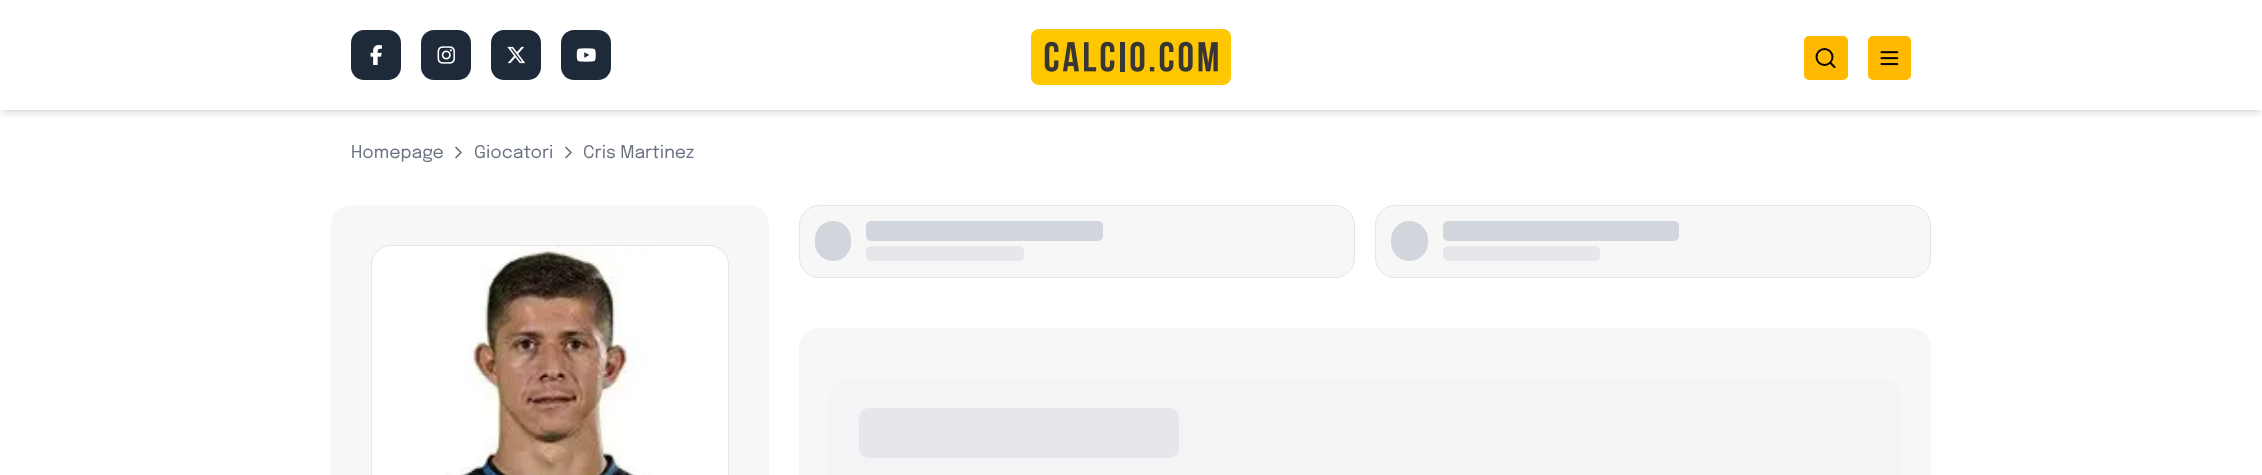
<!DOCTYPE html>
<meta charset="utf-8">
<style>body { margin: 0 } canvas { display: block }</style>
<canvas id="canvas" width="2262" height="475"></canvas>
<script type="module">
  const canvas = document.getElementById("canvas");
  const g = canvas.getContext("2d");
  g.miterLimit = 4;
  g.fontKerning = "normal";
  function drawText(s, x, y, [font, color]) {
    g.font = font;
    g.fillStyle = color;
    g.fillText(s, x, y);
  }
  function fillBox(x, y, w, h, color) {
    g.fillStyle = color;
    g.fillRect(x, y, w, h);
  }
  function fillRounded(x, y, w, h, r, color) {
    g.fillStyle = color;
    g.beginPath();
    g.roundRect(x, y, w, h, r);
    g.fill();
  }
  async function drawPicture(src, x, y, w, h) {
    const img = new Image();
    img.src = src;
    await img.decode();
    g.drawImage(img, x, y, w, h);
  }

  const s1 = ["17.5px Epilogue", "#6A7282"];

  fillBox(0, 0, 2262, 475, "#FFFFFF");
  g.save();
  g.beginPath();
  g.rect(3, 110, 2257, 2);
  g.clip();
  g.fillStyle = "rgba(0, 0, 0, 0.1)";
  g.filter = "blur(2.5px)";
  g.beginPath();
  g.rect(3, 5, 2257, 105);
  g.fill();
  g.filter = "none";
  g.restore();
  g.save();
  g.beginPath();
  g.rect(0, 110, 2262, 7);
  g.clip();
  g.fillStyle = "rgba(0, 0, 0, 0.1)";
  g.filter = "blur(4px)";
  g.beginPath();
  g.rect(1, 6, 2260, 108);
  g.fill();
  g.filter = "none";
  g.restore();
  fillRounded(351, 30, 50, 50, 13, "#1E2939");
  await drawPicture("pic1.png", 370, 45, 12, 20);
  fillRounded(421, 30, 50, 50, 13, "#1E2939");
  await drawPicture("pic2.png", 437, 46, 18, 18);
  fillRounded(491, 30, 50, 50, 13, "#1E2939");
  await drawPicture("pic3.png", 507, 46, 19, 18);
  fillRounded(561, 30, 50, 50, 13, "#1E2939");
  await drawPicture("pic4.png", 576, 48, 20, 14);
  await drawPicture("pic5.png", 1031, 29, 200, 56);
  fillRounded(1804, 36, 44, 44, 5, "#FFB900");
  g.beginPath();
  g.arc(1824.5, 57, 8, 0, Math.PI * 2);
  g.strokeStyle = "#000000";
  g.lineWidth = 2;
  g.stroke();
  g.beginPath();
  g.moveTo(1834.5, 67);
  g.lineTo(1830.5, 63);
  g.lineCap = "round";
  g.lineJoin = "round";
  g.stroke();
  fillRounded(1868, 36, 43, 44, 5, "#FFB900");
  await drawPicture("pic6.png", 1880, 51, 19, 15);
  drawText("Homepage", 351, 158, s1);
  g.beginPath();
  g.moveTo(456, 157.5);
  g.lineTo(461, 152.5);
  g.lineTo(456, 147.5);
  g.strokeStyle = "#6A7282";
  g.lineWidth = 1.7;
  g.stroke();
  drawText("Giocatori", 474, 158, s1);
  g.beginPath();
  g.moveTo(566, 157.5);
  g.lineTo(571, 152.5);
  g.lineTo(566, 147.5);
  g.stroke();
  drawText("Cris Martinez", 583, 158, s1);
  fillRounded(331, 205, 438, 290, 20, "#F7F7F7");
  g.fillStyle = "#FFFFFF";
  g.beginPath();
  g.roundRect(371.5, 245.5, 357, 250, 19.5);
  g.fill();
  g.strokeStyle = "#E5E5E5";
  g.lineWidth = 1;
  g.lineJoin = "miter";
  g.stroke();
  await drawPicture("pic7.png", 445, 246, 206, 229);
  g.fillStyle = "#F7F7F7";
  g.beginPath();
  g.roundRect(799.5, 205.5, 555, 72, 19.5);
  g.fill();
  g.stroke();
  fillRounded(815, 221, 36, 40, 18, "#D1D5DC");
  fillRounded(866, 221, 237, 20, 5, "#D1D5DC");
  fillRounded(866, 246, 158, 15, 5, "#E5E7EB");
  g.fillStyle = "#F7F7F7";
  g.beginPath();
  g.roundRect(1375.5, 205.5, 555, 72, 19.5);
  g.fill();
  g.stroke();
  fillRounded(1391, 221, 37, 40, 18.5, "#D1D5DC");
  fillRounded(1443, 221, 236, 20, 5, "#D1D5DC");
  fillRounded(1443, 246, 157, 15, 5, "#E5E7EB");
  fillRounded(799, 328, 1132, 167, 20, "#F7F7F7");
  fillRounded(829, 378, 1072, 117, 20, "#F3F4F6");
  fillRounded(859, 408, 320, 50, 10, "#E5E7EB");
</script>
